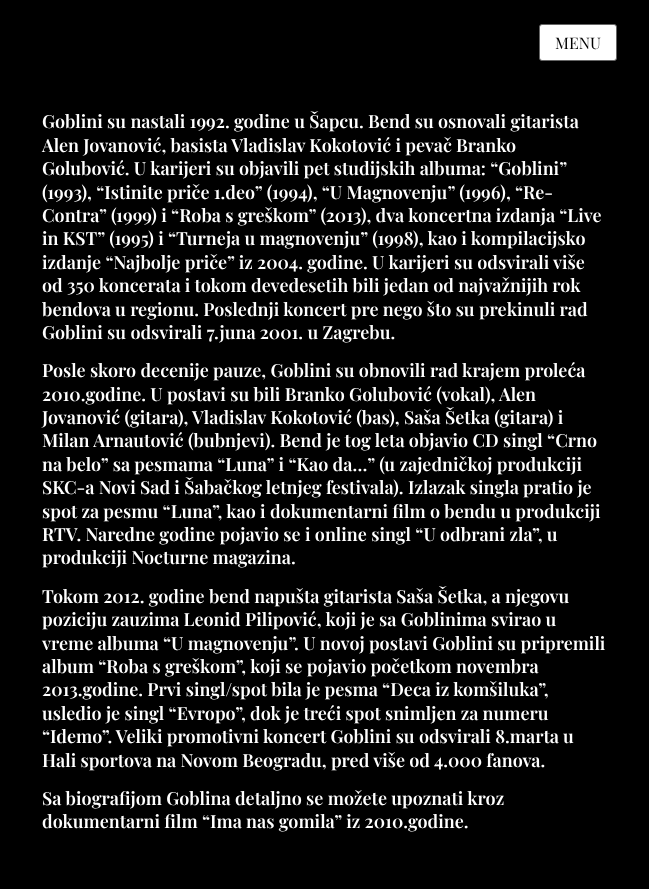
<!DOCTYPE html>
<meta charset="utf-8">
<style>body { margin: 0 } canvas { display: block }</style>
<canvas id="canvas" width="649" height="889"></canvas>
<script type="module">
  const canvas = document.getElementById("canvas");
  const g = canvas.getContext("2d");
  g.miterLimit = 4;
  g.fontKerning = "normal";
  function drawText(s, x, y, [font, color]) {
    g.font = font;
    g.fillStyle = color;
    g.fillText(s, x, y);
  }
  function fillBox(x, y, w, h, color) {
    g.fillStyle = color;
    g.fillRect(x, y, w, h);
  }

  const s1 = ["16px Playfair Display", "#000000"];
  const s2 = ["600 18px Playfair Display", "#FFFFFF"];

  fillBox(0, 0, 649, 889, "#000000");
  g.fillStyle = "#FFFFFF";
  g.beginPath();
  g.roundRect(539.5, 24.5, 77, 36, 2.5);
  g.fill();
  g.strokeStyle = "#666666";
  g.stroke();
  drawText("MENU", 555, 49, s1);
  drawText("Goblini su nastali 1992. godine u Šapcu. Bend su osnovali gitarista", 42, 128, s2);
  drawText("Alen Jovanović, basista Vladislav Kokotović i pevač Branko", 42, 152, s2);
  drawText("Golubović. U karijeri su objavili pet studijskih albuma: “Goblini”", 42, 175, s2);
  drawText("(1993), “Istinite priče 1.deo” (1994), “U Magnovenju” (1996), “Re-", 42, 199, s2);
  drawText("Contra” (1999) i “Roba s greškom” (2013), dva koncertna izdanja “Live", 42, 222, s2);
  drawText("in KST” (1995) i “Turneja u magnovenju” (1998), kao i kompilacijsko", 42, 245, s2);
  drawText("izdanje “Najbolje priče” iz 2004. godine. U karijeri su odsvirali više", 42, 269, s2);
  drawText("od 350 koncerata i tokom devedesetih bili jedan od najvažnijih rok", 42, 292, s2);
  drawText("bendova u regionu. Poslednji koncert pre nego što su prekinuli rad", 42, 316, s2);
  drawText("Goblini su odsvirali 7.juna 2001. u Zagrebu.", 42, 339, s2);
  drawText("Posle skoro decenije pauze, Goblini su obnovili rad krajem proleća", 42, 377, s2);
  drawText("2010.godine. U postavi su bili Branko Golubović (vokal), Alen", 42, 401, s2);
  drawText("Jovanović (gitara), Vladislav Kokotović (bas), Saša Šetka (gitara) i", 42, 424, s2);
  drawText("Milan Arnautović (bubnjevi). Bend je tog leta objavio CD singl “Crno", 42, 447, s2);
  drawText("na belo” sa pesmama “Luna” i “Kao da…” (u zajedničkoj produkciji", 42, 471, s2);
  drawText("SKC-a Novi Sad i Šabačkog letnjeg festivala). Izlazak singla pratio je", 42, 494, s2);
  drawText("spot za pesmu “Luna”, kao i dokumentarni film o bendu u produkciji", 42, 518, s2);
  drawText("RTV. Naredne godine pojavio se i online singl “U odbrani zla”, u", 42, 541, s2);
  drawText("produkciji Nocturne magazina.", 42, 564, s2);
  drawText("Tokom 2012. godine bend napušta gitarista Saša Šetka, a njegovu", 42, 603, s2);
  drawText("poziciju zauzima Leonid Pilipović, koji je sa Goblinima svirao u", 42, 626, s2);
  drawText("vreme albuma “U magnovenju”. U novoj postavi Goblini su pripremili", 42, 650, s2);
  drawText("album “Roba s greškom”, koji se pojavio početkom novembra", 42, 673, s2);
  drawText("2013.godine. Prvi singl/spot bila je pesma “Deca iz komšiluka”,", 42, 696, s2);
  drawText("usledio je singl “Evropo”, dok je treći spot snimljen za numeru", 42, 720, s2);
  drawText("“Idemo”. Veliki promotivni koncert Goblini su odsvirali 8.marta u", 42, 743, s2);
  drawText("Hali sportova na Novom Beogradu, pred više od 4.000 fanova.", 42, 767, s2);
  drawText("Sa biografijom Goblina detaljno se možete upoznati kroz", 42, 805, s2);
  drawText("dokumentarni film “Ima nas gomila” iz 2010.godine.", 42, 828, s2);
</script>
